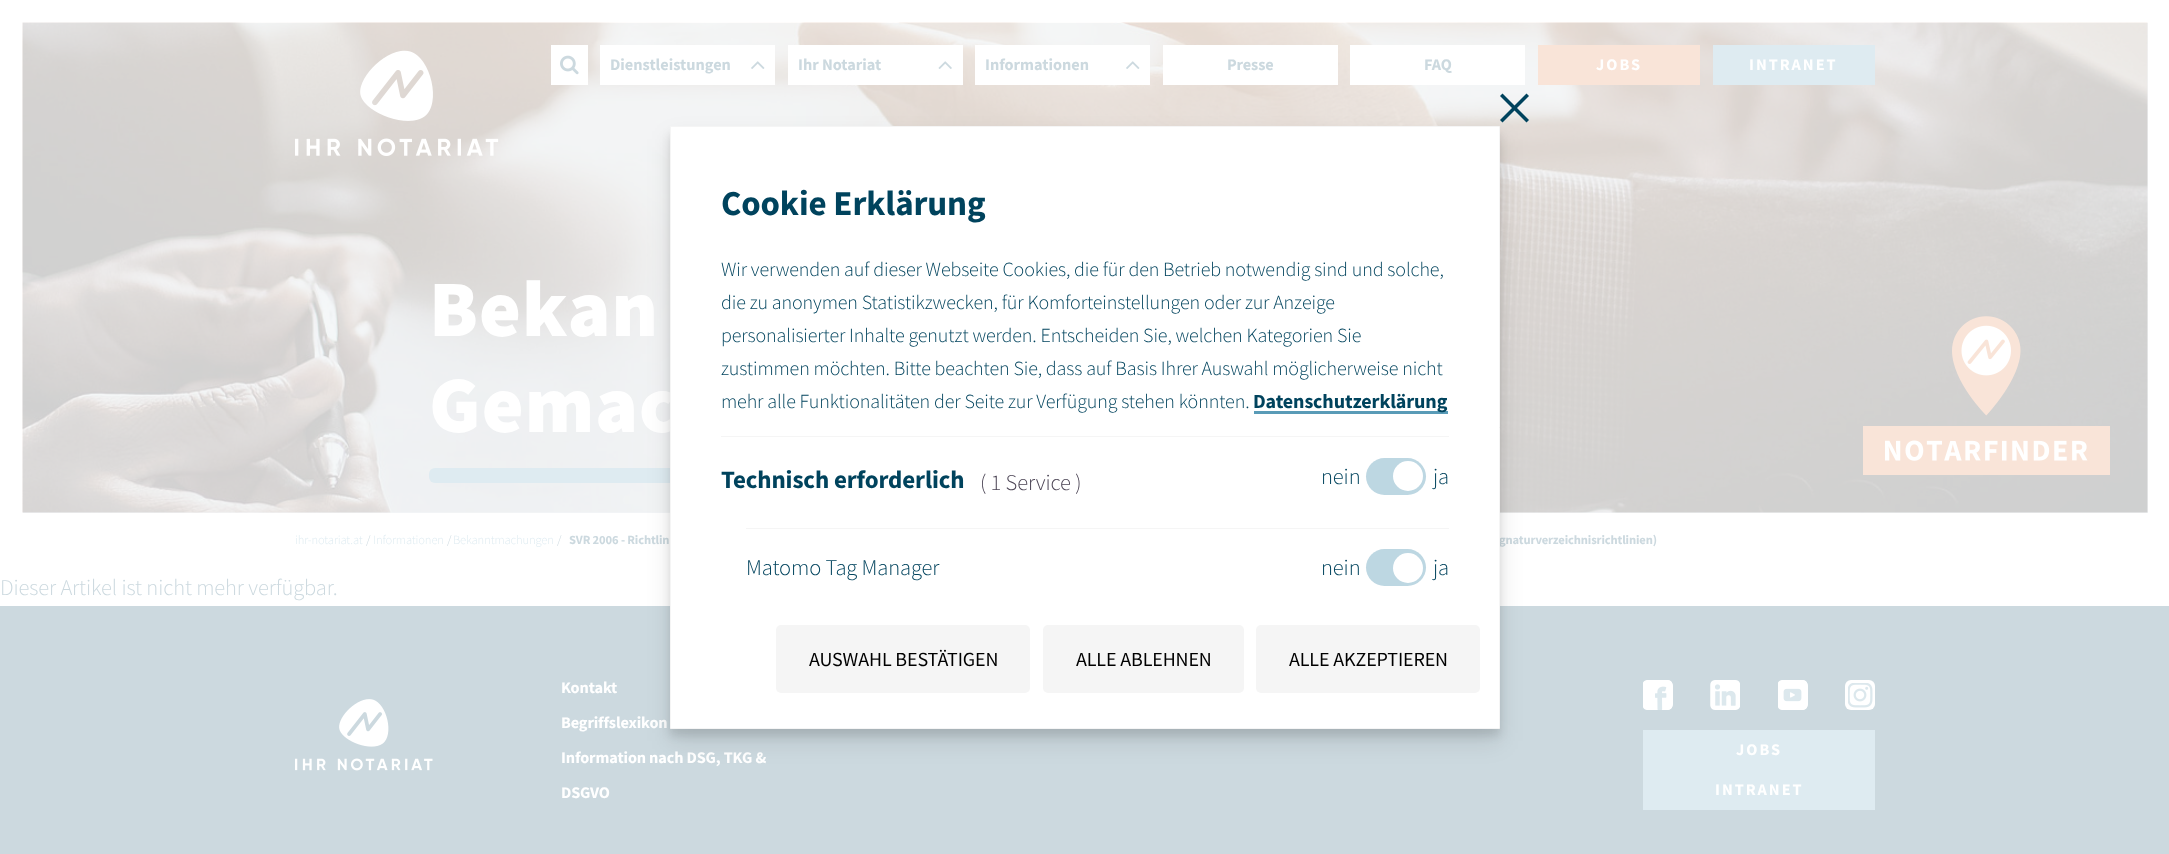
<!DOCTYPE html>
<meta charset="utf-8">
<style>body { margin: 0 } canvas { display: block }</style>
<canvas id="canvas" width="2169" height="854"></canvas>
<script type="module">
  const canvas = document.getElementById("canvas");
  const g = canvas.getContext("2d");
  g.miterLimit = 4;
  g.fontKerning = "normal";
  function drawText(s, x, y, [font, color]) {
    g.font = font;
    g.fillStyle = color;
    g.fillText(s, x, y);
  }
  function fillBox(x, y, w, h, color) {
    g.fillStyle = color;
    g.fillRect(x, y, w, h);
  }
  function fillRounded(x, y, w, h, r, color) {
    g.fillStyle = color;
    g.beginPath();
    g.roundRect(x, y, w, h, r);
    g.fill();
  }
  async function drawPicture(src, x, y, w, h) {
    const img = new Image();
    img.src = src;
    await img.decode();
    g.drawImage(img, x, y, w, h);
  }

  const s1 = ["bold 16.25px Source Sans Pro", "#CCD9DF"];
  const s2 = ["bold 16.25px Source Sans Pro", "#FFFFFF"];
  const s3 = ["900 80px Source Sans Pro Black", "#FFFFFF"];
  const s4 = ["300 12.5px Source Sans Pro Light", "#DEEBF1"];
  const s5 = ["300 12.5px Source Sans Pro Light", "#CCD9DF"];
  const s6 = ["bold 12.5px Source Sans Pro", "#CCD9DF"];
  const s7 = ["300 22.5px Source Sans Pro Light", "#CCD9DF"];
  const s8 = ["bold 35px Source Sans Pro", "#00435D"];
  const s9 = ["300 20px Source Sans Pro Light", "#00435D"];
  const s10 = ["bold 20px Source Sans Pro", "#00435D"];
  const s11 = ["bold 25px Source Sans Pro", "#00435D"];
  const s12 = ["300 22.5px Source Sans Pro Light", "#4C4555"];
  const s13 = ["300 22.5px Source Sans Pro Light", "#00435D"];
  const s14 = ["20px Source Sans Pro", "#000000"];

  fillBox(0, 0, 2169, 854, "#FFFFFF");
  fillBox(23, 23, 2125, 490, "#F5F7F9");
  await drawPicture("pic5.png", 22, 22, 2126, 491);
  await drawPicture("pic1.png", 295, 50, 204, 106);
  fillBox(551, 45, 37, 40, "#FFFFFF");
  await drawPicture("pic2.png", 560, 55, 19, 20);
  fillBox(600, 45, 175, 40, "#FFFFFF");
  drawText("Dienstleistungen", 610, 70, s1);
  await drawPicture("pic3.png", 751, 61, 14, 8);
  fillBox(788, 45, 175, 40, "#FFFFFF");
  drawText("Ihr Notariat", 798, 70, s1);
  await drawPicture("pic4.png", 938, 61, 14, 8);
  fillBox(975, 45, 175, 40, "#FFFFFF");
  drawText("Informationen", 985, 70, s1);
  await drawPicture("pic3.png", 1126, 61, 14, 8);
  fillBox(1163, 45, 175, 40, "#FFFFFF");
  g.letterSpacing = "-0.12px";
  drawText("Presse", 1227, 70, s1);
  fillBox(1350, 45, 175, 40, "#FFFFFF");
  drawText("FAQ", 1424, 70, s1);
  fillBox(1538, 45, 162, 40, "#F9E4D8");
  g.letterSpacing = "2px";
  drawText("JOBS", 1596, 70, s2);
  fillBox(1713, 45, 162, 40, "#DEEBF1");
  drawText("INTRANET", 1749, 70, s2);
  g.letterSpacing = "1px";
  drawText("Bekan", 429, 336, s3);
  drawText("Gemac", 429, 432, s3);
  fillRounded(429, 468, 287, 15, 6, "#DEEBF1");
  await drawPicture("pic6.png", 1863, 316, 247, 159);
  g.letterSpacing = "-0.12px";
  drawText("ihr-notariat.at", 295, 544, s4);
  drawText("/", 366, 544, s5);
  drawText("Informationen", 373, 544, s4);
  drawText("/", 447, 544, s5);
  drawText("Bekanntmachungen", 453, 544, s4);
  drawText("/", 557, 544, s5);
  drawText("SVR 2006 - Richtlin", 569, 544, s6);
  drawText("gnaturverzeichnisrichtlinien)", 1499, 544, s6);
  drawText("Dieser Artikel ist nicht mehr verfügbar.", 0, 595, s7);
  fillBox(0, 606, 2169, 248, "#CCD9DF");
  await drawPicture("pic7.png", 295, 699, 138, 72);
  drawText("Kontakt", 561, 693, s2);
  drawText("Begriffslexikon", 561, 728, s2);
  drawText("Information nach DSG, TKG &", 561, 763, s2);
  drawText("DSGVO", 561, 798, s2);
  fillRounded(1643, 680, 30, 30, 6, "#FFFFFF");
  await drawPicture("pic8.png", 1643, 680, 30, 30);
  await drawPicture("pic9.png", 1710, 680, 30, 30);
  fillRounded(1778, 680, 30, 30, 6, "#FFFFFF");
  await drawPicture("pic10.png", 1778, 680, 30, 30);
  fillRounded(1845, 680, 30, 30, 6, "#FFFFFF");
  await drawPicture("pic11.png", 1848, 683, 25, 25);
  fillBox(1643, 730, 232, 80, "#DEEBF1");
  g.letterSpacing = "2px";
  drawText("JOBS", 1736, 755, s2);
  drawText("INTRANET", 1715, 795, s2);
  g.fillStyle = "rgba(0, 0, 0, 0.1)";
  g.filter = "blur(4px)";
  g.beginPath();
  g.rect(670, 134, 830, 602);
  g.fill();
  g.filter = "none";
  g.filter = "blur(12.5px)";
  g.beginPath();
  g.rect(670, 139, 830, 602);
  g.fill();
  g.filter = "none";
  g.fillStyle = "#FFFFFF";
  g.beginPath();
  g.rect(670.5, 126.5, 829, 602);
  g.fill();
  g.strokeStyle = "#F5F5F5";
  g.stroke();
  g.fillStyle = "#00435D";
  g.beginPath();
  g.moveTo(1526.5, 93.5);
  g.lineTo(1529, 96);
  g.lineTo(1502.5, 122.5);
  g.lineTo(1500, 120);
  g.closePath();
  g.fill();
  g.beginPath();
  g.moveTo(1500, 96);
  g.lineTo(1502.5, 93.5);
  g.lineTo(1529, 120);
  g.lineTo(1526.5, 122.5);
  g.closePath();
  g.fill();
  g.letterSpacing = "-0.12px";
  drawText("Cookie Erklärung", 721, 215, s8);
  drawText("Wir verwenden auf dieser Webseite Cookies, die für den Betrieb notwendig sind und solche,", 721, 276, s9);
  drawText("die zu anonymen Statistikzwecken, für Komforteinstellungen oder zur Anzeige", 721, 309, s9);
  drawText("personalisierter Inhalte genutzt werden. Entscheiden Sie, welchen Kategorien Sie", 721, 342, s9);
  drawText("zustimmen möchten. Bitte beachten Sie, dass auf Basis Ihrer Auswahl möglicherweise nicht", 721, 375, s9);
  drawText("mehr alle Funktionalitäten der Seite zur Verfügung stehen könnten.", 721, 408, s9);
  fillBox(1254, 411, 194, 3, "#599BB7");
  drawText("Datenschutzerklärung", 1253, 408, s10);
  fillBox(721, 436, 728, 1, "#F5F5F5");
  drawText("Technisch erforderlich", 721, 488, s11);
  drawText("( 1 Service )", 980, 490, s12);
  drawText("nein", 1321, 484, s13);
  fillRounded(1366, 458, 60, 37, 18.5, "#BDD7E2");
  g.fillStyle = "#FFFFFF";
  g.beginPath();
  g.arc(1408, 476, 15, 0, Math.PI * 2);
  g.fill();
  drawText("ja", 1433, 484, s13);
  fillBox(746, 528, 703, 1, "#F5F5F5");
  drawText("Matomo Tag Manager", 746, 575, s13);
  drawText("nein", 1321, 575, s13);
  fillRounded(1366, 549, 60, 37, 18.5, "#BDD7E2");
  g.fillStyle = "#FFFFFF";
  g.beginPath();
  g.arc(1408, 568, 15, 0, Math.PI * 2);
  g.fill();
  drawText("ja", 1433, 575, s13);
  fillRounded(776, 625, 254, 68, 5, "#F5F5F5");
  drawText("AUSWAHL BESTÄTIGEN", 809, 666, s14);
  fillRounded(1043, 625, 201, 68, 5, "#F5F5F5");
  drawText("ALLE ABLEHNEN", 1076, 666, s14);
  fillRounded(1256, 625, 224, 68, 5, "#F5F5F5");
  drawText("ALLE AKZEPTIEREN", 1289, 666, s14);
</script>
